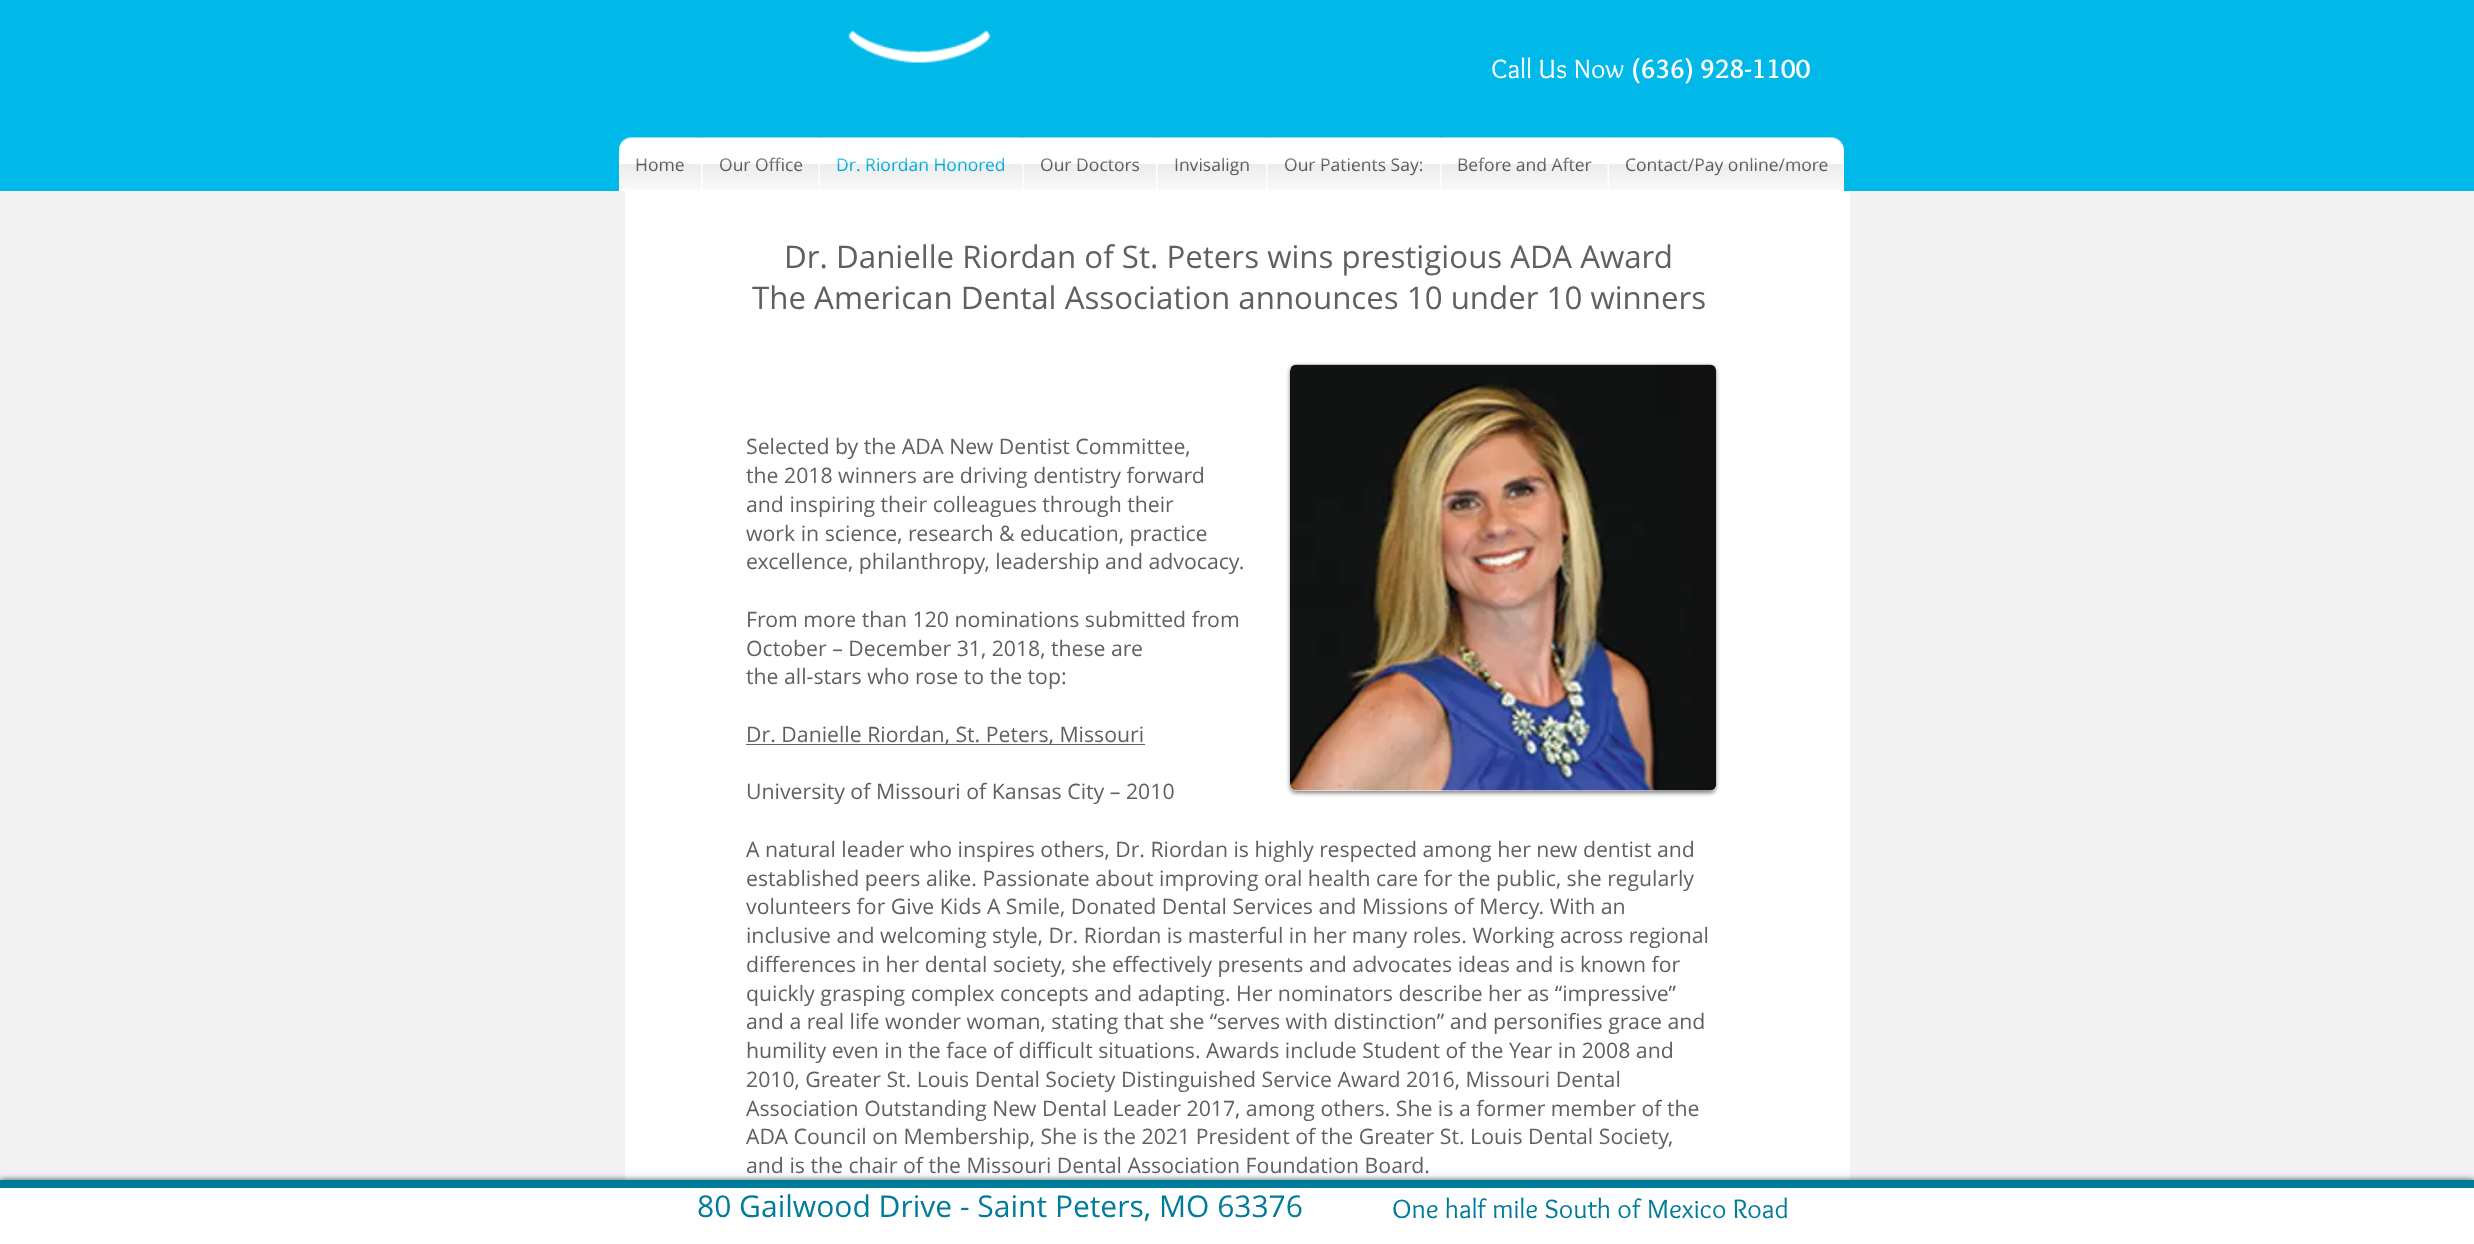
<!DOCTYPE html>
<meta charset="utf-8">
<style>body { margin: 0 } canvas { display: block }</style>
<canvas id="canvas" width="2474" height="1244"></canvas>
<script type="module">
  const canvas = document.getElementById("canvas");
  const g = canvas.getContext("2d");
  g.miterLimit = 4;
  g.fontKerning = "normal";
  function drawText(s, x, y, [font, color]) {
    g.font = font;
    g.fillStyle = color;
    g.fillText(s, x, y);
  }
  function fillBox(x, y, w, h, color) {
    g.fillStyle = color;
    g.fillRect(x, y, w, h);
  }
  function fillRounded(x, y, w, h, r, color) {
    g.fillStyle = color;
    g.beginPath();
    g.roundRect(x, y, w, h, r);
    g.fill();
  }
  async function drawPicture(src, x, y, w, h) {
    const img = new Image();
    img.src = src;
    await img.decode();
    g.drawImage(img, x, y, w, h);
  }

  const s1 = ["27.5px Overlock", "#FFFFFF"];
  const s2 = ["bold 27.5px Overlock", "#FFFFFF"];
  const s3 = ["17.5px Open Sans", "#606060"];
  const s4 = ["17.5px Open Sans", "#00B9E8"];
  const s5 = ["31.25px Open Sans", "#606060"];
  const s6 = ["21.25px Open Sans", "#606060"];
  const s7 = ["30px Open Sans", "#007B9A"];
  const s8 = ["27.5px Overlock", "#007B9A"];

  fillBox(0, 0, 2474, 1244, "#F2F2F2");
  fillBox(0, 0, 2474, 191, "#00B9E8");
  await drawPicture("pic1.png", 848, 30, 144, 34);
  drawText("Call Us Now", 1491, 78, s1);
  drawText("(636) 928-1100", 1631, 78, s2);
  await drawPicture("pic2.png", 619, 137, 1225, 14);
  g.beginPath();
  g.roundRect(619, 138, 82, 53, [13, 0, 0, 0]);
  g.fill();
  drawText("Home", 635, 171, s3);
  await drawPicture("pic3.png", 619, 137, 82, 53);
  fillBox(701, 138, 455, 53, "#FFFFFF");
  drawText("Our Office", 719, 171, s3);
  await drawPicture("pic4.png", 702, 137, 117, 53);
  drawText("Dr. Riordan Honored", 836, 171, s4);
  await drawPicture("pic5.png", 820, 137, 203, 53);
  drawText("Our Doctors", 1040, 171, s3);
  await drawPicture("pic6.png", 1023, 137, 134, 53);
  fillBox(1156, 138, 110, 53, "#FFFFFF");
  drawText("Invisalign", 1174, 171, s3);
  await drawPicture("pic7.png", 1157, 137, 110, 53);
  fillBox(1266, 138, 342, 53, "#FFFFFF");
  drawText("Our Patients Say:", 1284, 171, s3);
  await drawPicture("pic8.png", 1267, 137, 173, 53);
  drawText("Before and After", 1457, 171, s3);
  await drawPicture("pic9.png", 1441, 137, 167, 53);
  g.fillStyle = "#FFFFFF";
  g.beginPath();
  g.roundRect(1608, 138, 236, 53, [0, 13, 0, 0]);
  g.fill();
  drawText("Contact/Pay online/more", 1625, 171, s3);
  await drawPicture("pic10.png", 1609, 137, 235, 53);
  fillBox(625, 191, 1225, 989, "#FFFFFF");
  drawText("Dr. Danielle Riordan of St. Peters wins prestigious ADA Award", 784, 268, s5);
  drawText("The American Dental Association announces 10 under 10 winners", 752, 309, s5);
  g.fillStyle = "rgba(0, 0, 0, 0.5)";
  g.filter = "blur(2px)";
  g.beginPath();
  g.roundRect(1290, 366, 426, 427, 6);
  g.fill();
  g.filter = "none";
  fillRounded(1290, 365, 426, 426, 6, "#FFFFFF");
  await drawPicture("pic11.png", 1290, 364, 426, 427);
  drawText("Selected by the ADA New Dentist Committee,", 746, 454, s6);
  drawText("the 2018 winners are driving dentistry forward", 746, 483, s6);
  drawText("and inspiring their colleagues through their", 746, 512, s6);
  drawText("work in science, research & education, practice", 746, 541, s6);
  drawText("excellence, philanthropy, leadership and advocacy.", 746, 569, s6);
  drawText("From more than 120 nominations submitted from", 746, 627, s6);
  drawText("October – December 31, 2018, these are", 746, 656, s6);
  drawText("the all-stars who rose to the top:", 746, 684, s6);
  fillBox(746, 744, 399, 1, "#606060");
  drawText("Dr. Danielle Riordan, St. Peters, Missouri", 746, 742, s6);
  drawText("University of Missouri of Kansas City – 2010", 746, 799, s6);
  drawText("A natural leader who inspires others, Dr. Riordan is highly respected among her new dentist and", 746, 857, s6);
  drawText("established peers alike. Passionate about improving oral health care for the public, she regularly", 746, 886, s6);
  drawText("volunteers for Give Kids A Smile, Donated Dental Services and Missions of Mercy. With an", 746, 914, s6);
  drawText("inclusive and welcoming style, Dr. Riordan is masterful in her many roles. Working across regional", 746, 943, s6);
  drawText("differences in her dental society, she effectively presents and advocates ideas and is known for", 746, 972, s6);
  drawText("quickly grasping complex concepts and adapting. Her nominators describe her as “impressive”", 746, 1001, s6);
  drawText("and a real life wonder woman, stating that she “serves with distinction” and personifies grace and", 746, 1029, s6);
  drawText("humility even in the face of difficult situations. Awards include Student of the Year in 2008 and", 746, 1058, s6);
  drawText("2010, Greater St. Louis Dental Society Distinguished Service Award 2016, Missouri Dental", 746, 1087, s6);
  drawText("Association Outstanding New Dental Leader 2017, among others. She is a former member of the", 746, 1116, s6);
  drawText("ADA Council on Membership, She is the 2021 President of the Greater St. Louis Dental Society,", 746, 1144, s6);
  drawText("and is the chair of the Missouri Dental Association Foundation Board.", 746, 1173, s6);
  g.fillStyle = "rgba(0, 0, 0, 0.7)";
  g.filter = "blur(3px)";
  g.beginPath();
  g.rect(0, 1180, 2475, 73);
  g.fill();
  g.filter = "none";
  fillBox(0, 1188, 2474, 56, "#FFFFFF");
  fillBox(0, 1180, 2474, 8, "#007B9A");
  drawText("80 Gailwood Drive - Saint Peters, MO 63376", 697, 1217, s7);
  drawText("One half mile South of Mexico Road", 1392, 1218, s8);
</script>
